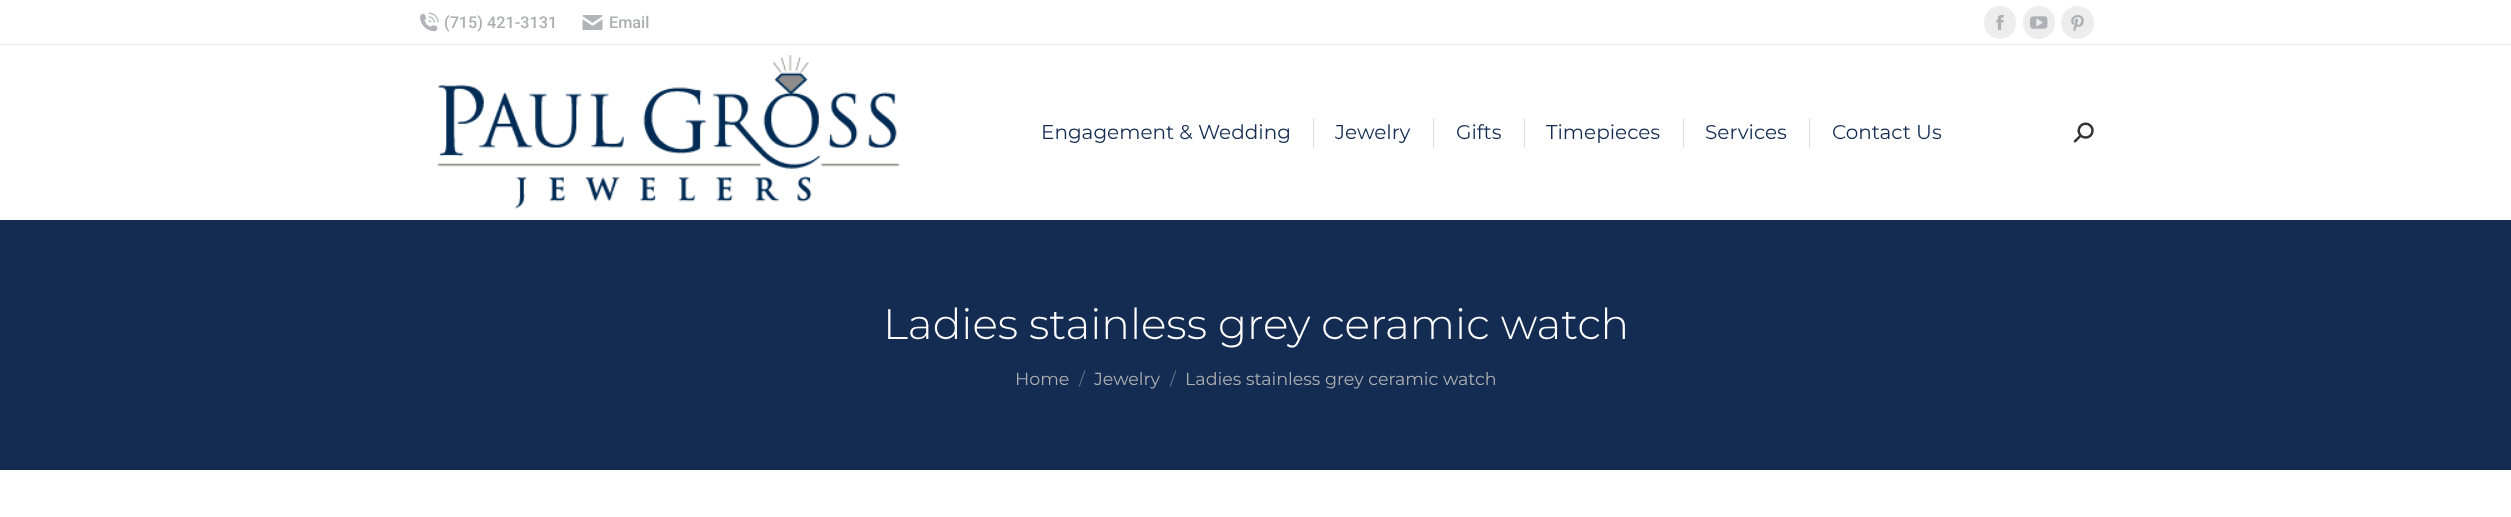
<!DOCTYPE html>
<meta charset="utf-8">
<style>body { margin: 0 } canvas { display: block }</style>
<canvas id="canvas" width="2511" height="517"></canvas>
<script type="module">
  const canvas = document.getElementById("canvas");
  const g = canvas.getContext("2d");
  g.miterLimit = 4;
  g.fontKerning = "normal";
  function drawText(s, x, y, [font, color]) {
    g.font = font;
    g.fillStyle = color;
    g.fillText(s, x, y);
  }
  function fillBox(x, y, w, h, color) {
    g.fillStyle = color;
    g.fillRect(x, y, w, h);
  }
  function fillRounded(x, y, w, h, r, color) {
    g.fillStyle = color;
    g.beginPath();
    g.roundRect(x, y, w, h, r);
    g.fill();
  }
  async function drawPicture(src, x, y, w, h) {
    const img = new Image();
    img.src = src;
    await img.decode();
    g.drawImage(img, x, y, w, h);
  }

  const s1 = ["500 16.25px Roboto", "#ADAFB3"];
  const s2 = ["20px Montserrat", "#142C52"];
  const s3 = ["300 42.5px Montserrat", "#FFFFFF"];
  const s4 = ["17.5px Montserrat", "#ADAFB3"];
  const s5 = ["17.5px Montserrat", "#616E83"];

  fillBox(0, 0, 2511, 517, "#FFFFFF");
  await drawPicture("pic1.png", 420, 12, 19, 20);
  drawText("(715) 421-3131", 444, 28, s1);
  await drawPicture("pic2.png", 582, 15, 21, 15);
  drawText("Email", 609, 28, s1);
  fillRounded(1984, 6, 32, 33, 16, "#EDEDED");
  await drawPicture("pic3.png", 1996, 15, 8, 15);
  fillRounded(2023, 6, 32, 33, 16, "#EDEDED");
  await drawPicture("pic4.png", 2030, 16, 18, 13);
  g.beginPath();
  g.arc(2077.5, 22.5, 16.5, 0, Math.PI * 2);
  g.fill();
  await drawPicture("pic5.png", 2071, 15, 13, 17);
  fillBox(0, 44, 2511, 1, "#E9E9E9");
  await drawPicture("pic6.png", 437, 55, 463, 154);
  drawText("Engagement & Wedding", 1041, 139, s2);
  fillBox(1313, 118, 1, 30, "#DEDEDE");
  drawText("Jewelry", 1335, 139, s2);
  fillBox(1433, 118, 1, 30, "#DEDEDE");
  drawText("Gifts", 1456, 139, s2);
  fillBox(1524, 118, 1, 30, "#DEDEDE");
  drawText("Timepieces", 1546, 139, s2);
  fillBox(1683, 118, 1, 30, "#DEDEDE");
  drawText("Services", 1705, 139, s2);
  fillBox(1809, 118, 1, 30, "#DEDEDE");
  drawText("Contact Us", 1832, 139, s2);
  await drawPicture("pic7.png", 2073, 122, 21, 21);
  fillBox(0, 220, 2511, 250, "#142C52");
  drawText("Ladies stainless grey ceramic watch", 883, 339, s3);
  drawText("Home", 1015, 385, s4);
  drawText("/", 1079, 385, s5);
  drawText("Jewelry", 1094, 385, s4);
  drawText("/", 1170, 385, s5);
  drawText("Ladies stainless grey ceramic watch", 1185, 385, s4);
</script>
